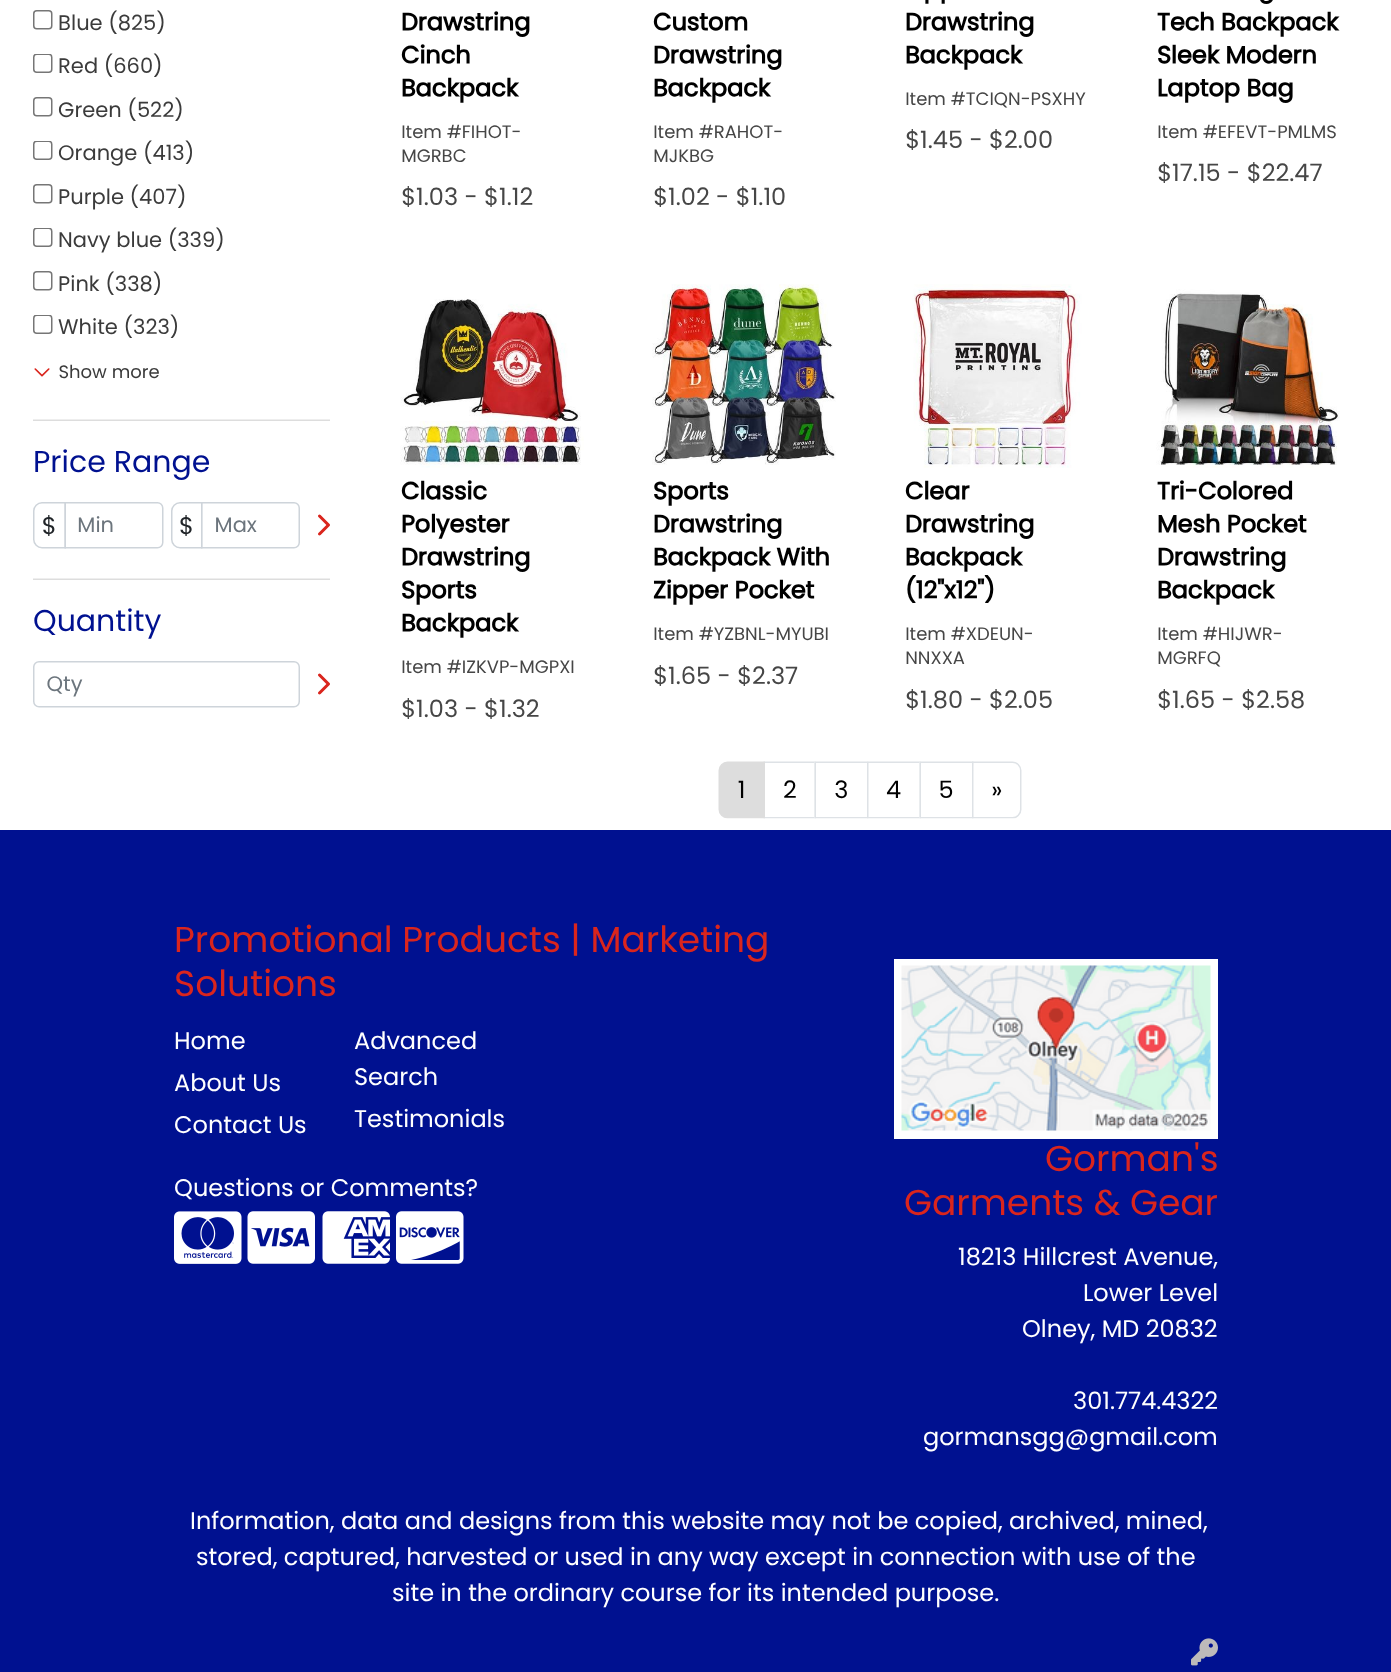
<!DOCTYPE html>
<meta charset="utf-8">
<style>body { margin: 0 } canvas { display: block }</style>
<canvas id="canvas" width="1391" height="1672"></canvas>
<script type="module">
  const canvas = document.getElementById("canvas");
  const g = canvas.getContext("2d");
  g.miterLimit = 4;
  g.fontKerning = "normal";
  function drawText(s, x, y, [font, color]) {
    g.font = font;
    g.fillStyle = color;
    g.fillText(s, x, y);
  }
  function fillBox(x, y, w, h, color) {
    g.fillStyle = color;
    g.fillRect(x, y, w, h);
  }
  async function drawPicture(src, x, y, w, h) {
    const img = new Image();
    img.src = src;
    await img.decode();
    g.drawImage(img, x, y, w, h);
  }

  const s1 = ["36px Poppins", "#DA251D"];
  const s2 = ["24px Poppins", "#FFFFFF"];

  fillBox(0, 0, 1391, 1672, "#FFFFFF");
  await drawPicture("pic1.png", 33, 0, 1307, 819);
  fillBox(0, 830, 1391, 842, "#001190");
  drawText("Promotional Products | Marketing", 174, 952, s1);
  drawText("Solutions", 174, 996, s1);
  drawText("Home", 174, 1049, s2);
  drawText("About Us", 174, 1091, s2);
  drawText("Contact Us", 174, 1133, s2);
  drawText("Advanced", 354, 1049, s2);
  drawText("Search", 354, 1085, s2);
  drawText("Testimonials", 354, 1127, s2);
  drawText("Questions or Comments?", 174, 1196, s2);
  await drawPicture("pic2.png", 174, 1211, 68, 53);
  await drawPicture("pic3.png", 247, 1211, 68, 53);
  await drawPicture("pic4.png", 322, 1211, 68, 53);
  await drawPicture("pic5.png", 396, 1211, 68, 53);
  fillBox(894, 959, 324, 180, "#FFFFFF");
  await drawPicture("pic6.png", 901, 965, 310, 166);
  drawText("Gorman's", 1045, 1171, s1);
  drawText("Garments & Gear", 904, 1215, s1);
  drawText("18213 Hillcrest Avenue,", 958, 1265, s2);
  drawText("Lower Level", 1083, 1301, s2);
  drawText("Olney, MD 20832", 1022, 1337, s2);
  drawText("301.774.4322", 1073, 1409, s2);
  drawText("gormansgg@gmail.com", 923, 1445, s2);
  drawText("Information, data and designs from this website may not be copied, archived, mined,", 190, 1529, s2);
  drawText("stored, captured, harvested or used in any way except in connection with use of the", 196, 1565, s2);
  drawText("site in the ordinary course for its intended purpose.", 392, 1601, s2);
  await drawPicture("pic7.png", 1191, 1638, 27, 28);
</script>
